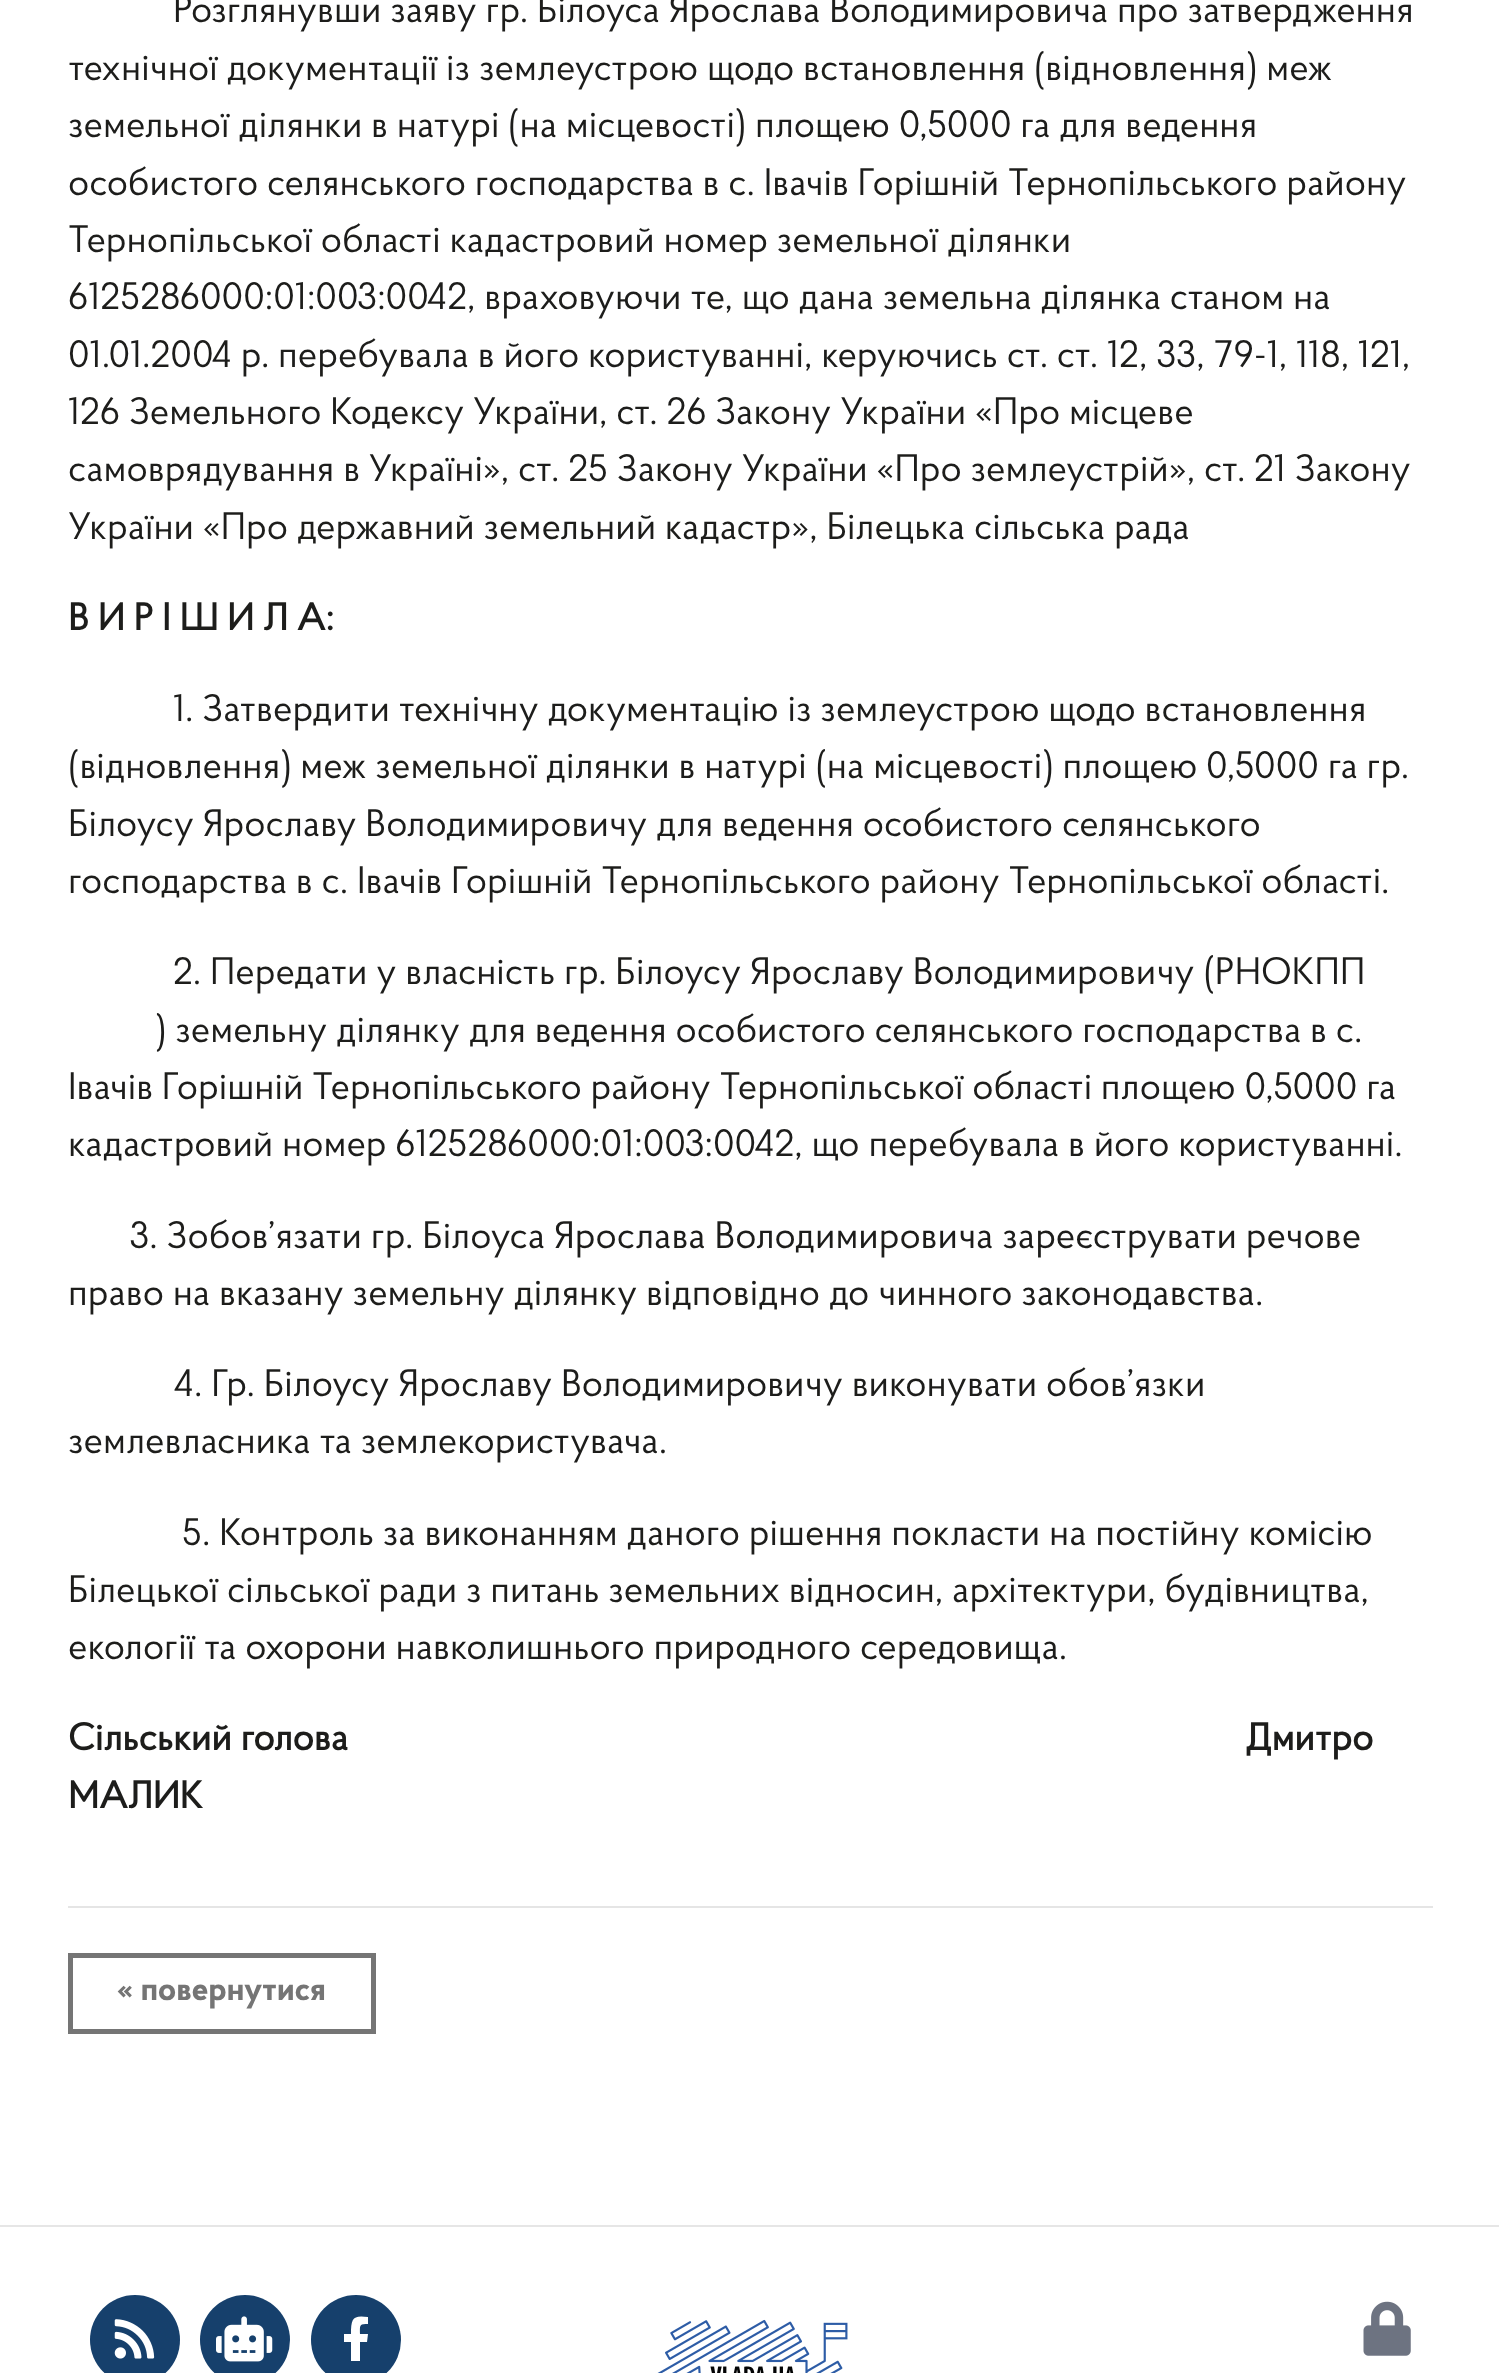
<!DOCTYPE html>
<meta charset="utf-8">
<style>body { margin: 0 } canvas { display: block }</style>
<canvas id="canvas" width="1499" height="2373"></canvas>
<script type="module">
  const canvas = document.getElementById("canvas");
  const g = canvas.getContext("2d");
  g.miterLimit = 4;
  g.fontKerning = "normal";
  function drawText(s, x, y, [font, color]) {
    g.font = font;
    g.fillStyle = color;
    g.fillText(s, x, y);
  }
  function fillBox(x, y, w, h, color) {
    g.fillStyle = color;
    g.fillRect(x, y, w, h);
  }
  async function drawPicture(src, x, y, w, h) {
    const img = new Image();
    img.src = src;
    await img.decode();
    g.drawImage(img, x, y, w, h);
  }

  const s1 = ["38.25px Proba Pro", "#1D1D1B"];
  const s2 = ["bold 38.25px Proba Pro", "#1D1D1B"];
  const s3 = ["bold 33.75px 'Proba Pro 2'", "#757575"];

  fillBox(0, 0, 1499, 2373, "#FFFFFF");
  drawText("Розглянувши заяву гр. Білоуса Ярослава Володимировича про затвердження", 173, 22, s1);
  drawText("технічної документації із землеустрою щодо встановлення (відновлення) меж", 68, 80, s1);
  drawText("земельної ділянки в натурі (на місцевості) площею 0,5000 га для ведення", 68, 137, s1);
  drawText("особистого селянського господарства в с. Івачів Горішній Тернопільського району", 68, 195, s1);
  drawText("Тернопільської області кадастровий номер земельної ділянки", 68, 252, s1);
  drawText("6125286000:01:003:0042, враховуючи те, що дана земельна ділянка станом на", 68, 309, s1);
  drawText("01.01.2004 р. перебувала в його користуванні, керуючись ст. ст. 12, 33, 79-1, 118, 121,", 68, 367, s1);
  drawText("126 Земельного Кодексу України, ст. 26 Закону України «Про місцеве", 68, 424, s1);
  drawText("самоврядування в Україні», ст. 25 Закону України «Про землеустрій», ст. 21 Закону", 68, 481, s1);
  drawText("України «Про державний земельний кадастр», Білецька сільська рада", 68, 539, s1);
  drawText("В И Р І Ш И Л А:", 68, 630, s2);
  drawText("1. Затвердити технічну документацію із землеустрою щодо встановлення", 173, 721, s1);
  drawText("(відновлення) меж земельної ділянки в натурі (на місцевості) площею 0,5000 га гр.", 68, 778, s1);
  drawText("Білоусу Ярославу Володимировичу для ведення особистого селянського", 68, 836, s1);
  drawText("господарства в с. Івачів Горішній Тернопільського району Тернопільської області.", 68, 893, s1);
  drawText("2. Передати у власність гр. Білоусу Ярославу Володимировичу (РНОКПП", 173, 984, s1);
  drawText(") земельну ділянку для ведення особистого селянського господарства в с.", 155, 1042, s1);
  drawText("Івачів Горішній Тернопільського району Тернопільської області площею 0,5000 га", 68, 1099, s1);
  drawText("кадастровий номер 6125286000:01:003:0042, що перебувала в його користуванні.", 68, 1156, s1);
  drawText("3. Зобов’язати гр. Білоуса Ярослава Володимировича зареєструвати речове", 129, 1248, s1);
  drawText("право на вказану земельну ділянку відповідно до чинного законодавства.", 68, 1305, s1);
  drawText("4. Гр. Білоусу Ярославу Володимировичу виконувати обов’язки", 173, 1396, s1);
  drawText("землевласника та землекористувача.", 68, 1453, s1);
  drawText("5. Контроль за виконанням даного рішення покласти на постійну комісію", 182, 1545, s1);
  drawText("Білецької сільської ради з питань земельних відносин, архітектури, будівництва,", 68, 1602, s1);
  drawText("екології та охорони навколишнього природного середовища.", 68, 1659, s1);
  drawText("Сільський голова                                                                                                      Дмитро", 68, 1750, s2);
  drawText("МАЛИК", 68, 1808, s2);
  fillBox(68, 1906, 1365, 2, "#E5E5E5");
  g.strokeStyle = "#757575";
  g.lineWidth = 5;
  g.strokeRect(70.5, 1955.5, 303, 76);
  drawText("« повернутися", 117, 2000, s3);
  fillBox(0, 2225, 1499, 2, "#E6E6E6");
  g.fillStyle = "#16406C";
  g.beginPath();
  g.arc(135, 2340, 45, 0, Math.PI * 2);
  g.fill();
  await drawPicture("pic1.png", 114, 2319, 41, 40);
  g.beginPath();
  g.arc(245, 2340, 45, 0, Math.PI * 2);
  g.fill();
  await drawPicture("pic2.png", 216, 2316, 57, 46);
  g.beginPath();
  g.arc(356, 2340, 45, 0, Math.PI * 2);
  g.fill();
  g.fillStyle = "#FFFFFF";
  g.beginPath();
  g.moveTo(367, 2342);
  g.lineTo(360, 2342);
  g.lineTo(360, 2361);
  g.lineTo(351, 2361);
  g.lineTo(351, 2342);
  g.lineTo(344, 2342);
  g.lineTo(344, 2334);
  g.lineTo(351, 2334);
  g.bezierCurveTo(351, 2318, 353, 2315, 368, 2317);
  g.lineTo(368, 2324);
  g.bezierCurveTo(359, 2324, 360, 2325, 360, 2334);
  g.lineTo(368, 2334);
  g.closePath();
  g.fill();
  await drawPicture("pic3.png", 657, 2319, 191, 54);
  await drawPicture("pic4.png", 1363, 2301, 48, 55);
</script>
